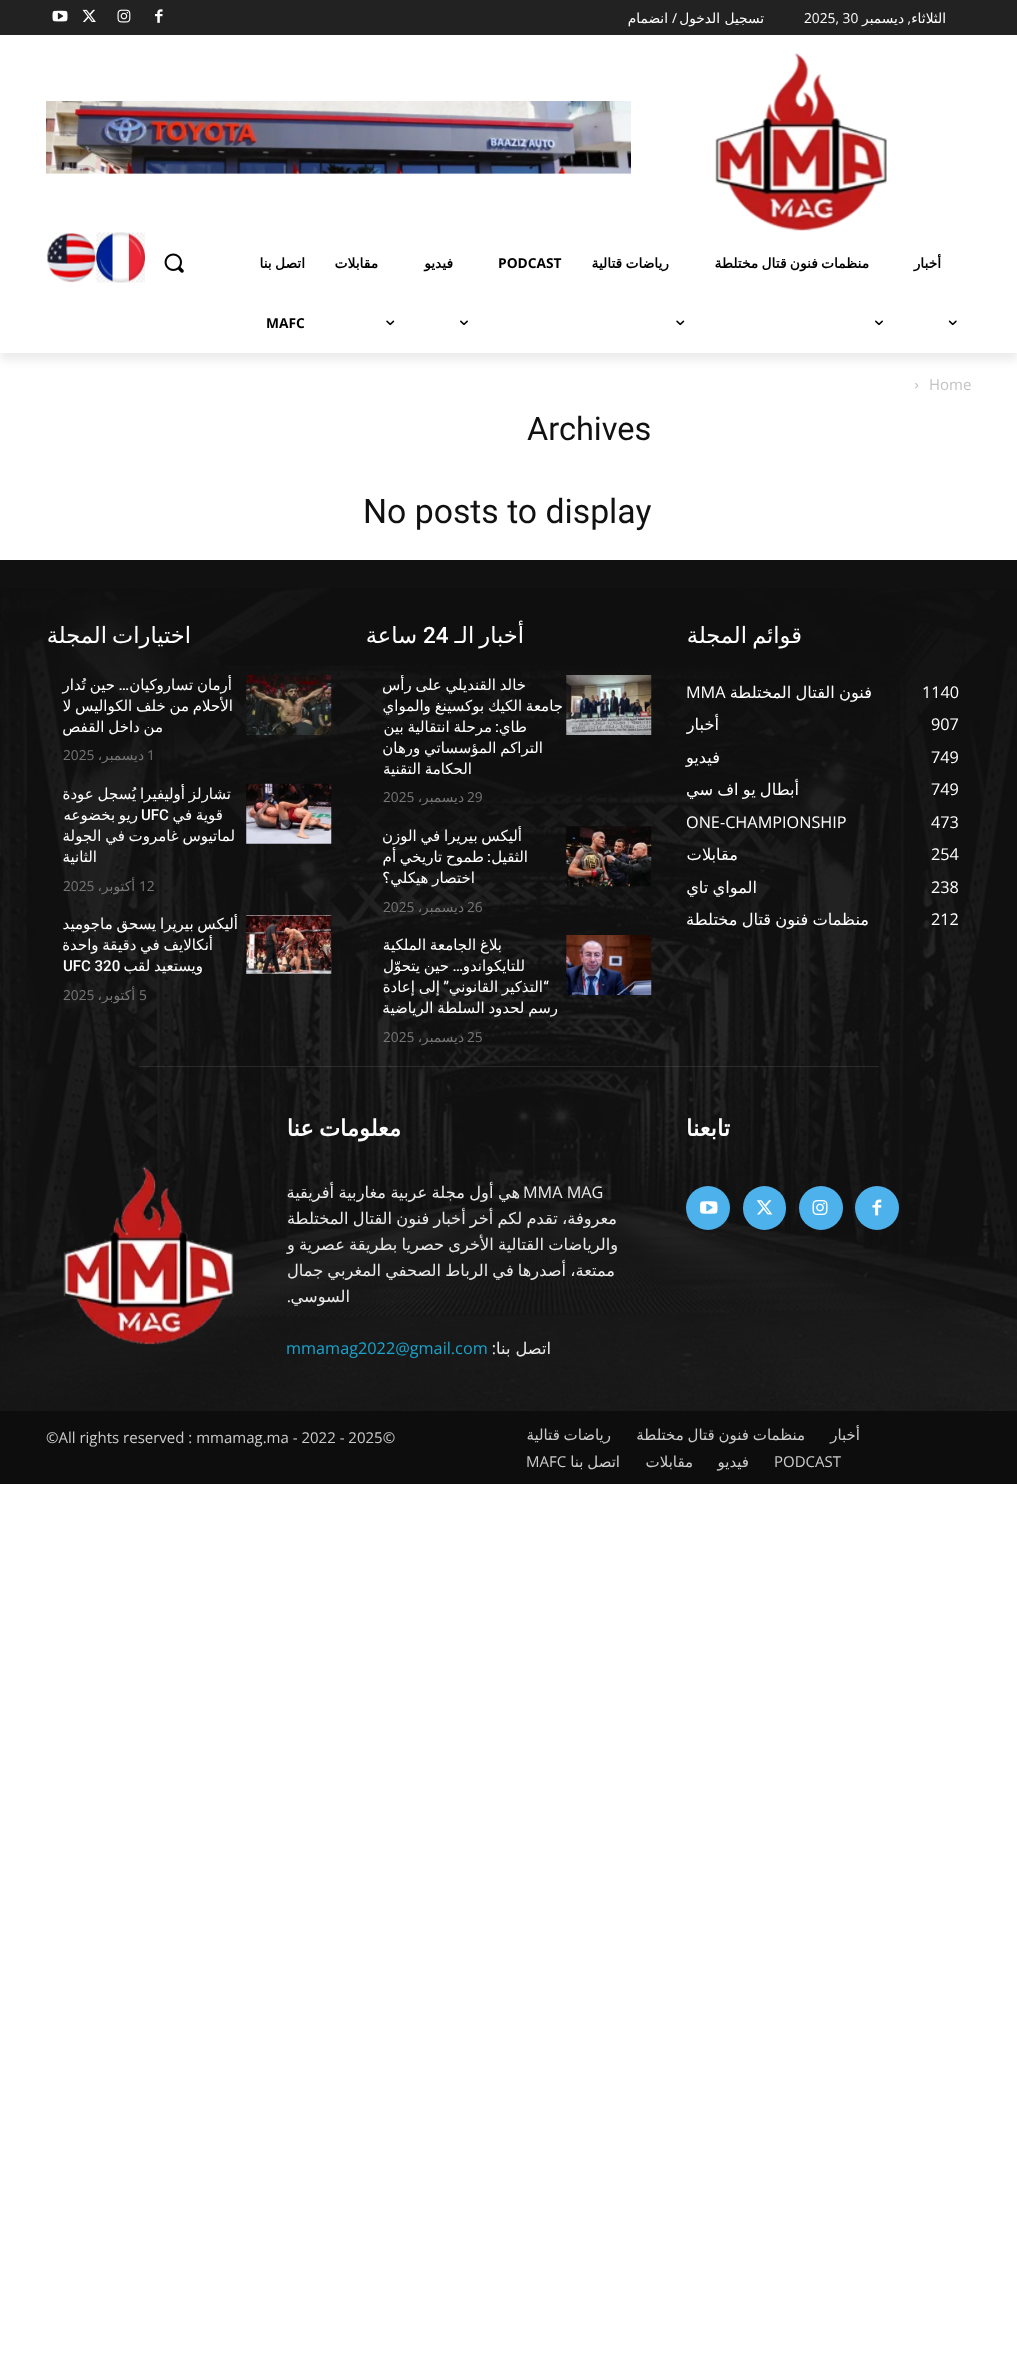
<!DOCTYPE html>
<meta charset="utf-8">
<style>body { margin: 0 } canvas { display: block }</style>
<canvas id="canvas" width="1017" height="2367"></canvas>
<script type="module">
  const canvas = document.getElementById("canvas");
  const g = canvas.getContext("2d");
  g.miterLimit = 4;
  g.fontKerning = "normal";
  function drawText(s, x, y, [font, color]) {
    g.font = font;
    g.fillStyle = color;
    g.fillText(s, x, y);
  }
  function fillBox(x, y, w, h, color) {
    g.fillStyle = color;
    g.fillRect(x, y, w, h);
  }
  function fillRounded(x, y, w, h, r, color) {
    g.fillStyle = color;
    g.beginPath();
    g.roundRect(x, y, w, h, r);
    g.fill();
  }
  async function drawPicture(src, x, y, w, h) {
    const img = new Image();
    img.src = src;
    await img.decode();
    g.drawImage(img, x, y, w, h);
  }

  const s1 = ["13.75px DejaVu Sans", "#FFFFFF"];
  const s2 = ["13.75px Open Sans", "#FFFFFF"];
  const s3 = ["bold 13.75px DejaVu Sans", "#000000"];
  const s4 = ["bold 13.75px Open Sans", "#000000"];
  const s5 = ["15px Open Sans", "#C3C3C3"];
  const s6 = ["32.5px Roboto", "#111111"];
  const s7 = ["33.75px Roboto", "#111111"];
  const s8 = ["22.5px DejaVu Sans", "#FFFFFF"];
  const s9 = ["16.25px Open Sans", "#FFFFFF"];
  const s10 = ["16.25px DejaVu Sans", "#FFFFFF"];
  const s11 = ["500 22.5px Roboto", "#FFFFFF"];
  const s12 = ["15px DejaVu Sans", "#FFFFFF"];
  const s13 = ["500 15px Roboto", "#FFFFFF"];
  const s14 = ["13.75px Open Sans", "#767676"];
  const s15 = ["13.75px DejaVu Sans", "#767676"];
  const s16 = ["bold 22.5px DejaVu Sans", "#FFFFFF"];
  const s17 = ["16.25px Open Sans", "#EAEAEA"];
  const s18 = ["16.25px DejaVu Sans", "#EAEAEA"];
  const s19 = ["16.25px Open Sans", "#1AA4CE"];
  const s20 = ["15px DejaVu Sans", "#CCCCCC"];
  const s21 = ["15px Open Sans", "#CCCCCC"];

  fillBox(0, 0, 1017, 2367, "#FFFFFF");
  fillBox(0, 0, 1017, 35, "#222222");
  await drawPicture("pic1.png", 155, 9, 8, 14);
  await drawPicture("pic2.png", 117, 9, 14, 14);
  await drawPicture("pic3.png", 82, 9, 14, 13);
  await drawPicture("pic4.png", 52, 10, 16, 12);
  await drawPicture("pic5.png", 715, 53, 172, 178);
  await drawPicture("pic6.png", 46, 101, 585, 73);
  await drawPicture("pic11.png", 96, 232, 49, 51);
  await drawPicture("pic12.png", 46, 233, 51, 50);
  g.save();
  g.beginPath();
  g.moveTo(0, 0);
  g.lineTo(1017, 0);
  g.lineTo(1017, 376);
  g.lineTo(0, 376);
  g.closePath();
  g.moveTo(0, 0);
  g.lineTo(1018, 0);
  g.lineTo(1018, 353);
  g.lineTo(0, 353);
  g.closePath();
  g.clip("evenodd");
  g.fillStyle = "rgba(0, 0, 0, 0.08)";
  g.filter = "blur(5px)";
  g.beginPath();
  g.rect(0, 8, 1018, 352);
  g.fill();
  g.filter = "none";
  g.restore();
  g.direction = "rtl";
  drawText("الثلاثاء", 946, 23, s1);
  drawText(",", 911, 23, s2);
  drawText("ديسمبر", 904, 23, s1);
  g.direction = "ltr";
  drawText("2025, 30", 804, 23, s2);
  g.direction = "rtl";
  drawText("تسجيل الدخول", 764, 23, s1);
  drawText("/", 677, 23, s2);
  drawText("انضمام", 668, 23, s1);
  drawText("أخبار", 941, 268, s3);
  await drawPicture("pic7.png", 948, 320, 9, 6);
  g.wordSpacing = "-1px";
  drawText("منظمات فنون قتال مختلطة", 869, 268, s3);
  await drawPicture("pic8.png", 875, 320, 8, 6);
  drawText("رياضات قتالية", 669, 268, s3);
  await drawPicture("pic9.png", 676, 320, 9, 6);
  g.wordSpacing = "0px";
  g.direction = "ltr";
  drawText("PODCAST", 498, 268, s4);
  g.direction = "rtl";
  drawText("فيديو", 453, 268, s3);
  await drawPicture("pic8.png", 460, 320, 8, 6);
  drawText("مقابلات", 378, 268, s3);
  await drawPicture("pic9.png", 386, 320, 9, 6);
  g.wordSpacing = "-1px";
  drawText("اتصل بنا", 305, 268, s3);
  g.wordSpacing = "0px";
  g.direction = "ltr";
  drawText("MAFC", 266, 328, s4);
  await drawPicture("pic10.png", 164, 253, 20, 20);
  drawText("Home", 929, 390, s5);
  await drawPicture("pic13.png", 915, 382, 4, 7);
  drawText("Archives", 527, 440, s6);
  drawText("No posts to display", 363, 523, s7);
  fillBox(0, 560, 1017, 851, "#111111");
  await drawPicture("pic14.png", 0, 588, 1017, 823);
  g.wordSpacing = "-2px";
  g.direction = "rtl";
  drawText("قوائم المجلة", 802, 643, s8);
  g.wordSpacing = "0px";
  g.direction = "ltr";
  drawText("1140", 922, 698, s9);
  g.wordSpacing = "-1px";
  g.direction = "rtl";
  drawText("فنون القتال المختلطة", 872, 698, s10);
  g.wordSpacing = "0px";
  g.direction = "ltr";
  drawText("MMA", 686, 698, s9);
  drawText("907", 931, 730, s9);
  g.direction = "rtl";
  drawText("أخبار", 719, 730, s10);
  g.direction = "ltr";
  drawText("749", 931, 763, s9);
  g.direction = "rtl";
  drawText("فيديو", 720, 763, s10);
  g.direction = "ltr";
  drawText("749", 931, 795, s9);
  g.wordSpacing = "-1px";
  g.direction = "rtl";
  drawText("أبطال يو اف سي", 799, 795, s10);
  g.wordSpacing = "0px";
  g.direction = "ltr";
  drawText("473", 931, 828, s9);
  drawText("ONE-CHAMPIONSHIP", 686, 828, s9);
  drawText("254", 931, 860, s9);
  g.direction = "rtl";
  drawText("مقابلات", 738, 860, s10);
  g.direction = "ltr";
  drawText("238", 931, 893, s9);
  g.wordSpacing = "-1px";
  g.direction = "rtl";
  drawText("المواي تاي", 757, 893, s10);
  g.wordSpacing = "0px";
  g.direction = "ltr";
  drawText("212", 931, 925, s9);
  g.wordSpacing = "-1px";
  g.direction = "rtl";
  drawText("منظمات فنون قتال مختلطة", 869, 925, s10);
  g.wordSpacing = "-2px";
  drawText("أخبار الـ", 524, 643, s8);
  g.wordSpacing = "0px";
  g.direction = "ltr";
  drawText("24", 423, 643, s11);
  g.direction = "rtl";
  drawText("ساعة", 417, 643, s8);
  await drawPicture("pic15.png", 566, 675, 86, 60);
  g.wordSpacing = "-1px";
  drawText("خالد القنديلي على رأس", 526, 690, s12);
  drawText("جامعة الكيك بوكسينغ والمواي", 563, 711, s12);
  g.wordSpacing = "0px";
  drawText("طاي", 527, 732, s12);
  drawText(":", 499, 732, s13);
  g.wordSpacing = "-1px";
  drawText("مرحلة انتقالية بين", 492, 732, s12);
  drawText("التراكم المؤسساتي ورهان", 543, 753, s12);
  drawText("الحكامة التقنية", 472, 774, s12);
  g.wordSpacing = "0px";
  g.direction = "ltr";
  drawText("29", 467, 802, s14);
  g.direction = "rtl";
  drawText("ديسمبر،", 464, 802, s15);
  g.direction = "ltr";
  drawText("2025", 383, 802, s14);
  await drawPicture("pic16.png", 566, 826, 86, 61);
  g.wordSpacing = "-1px";
  g.direction = "rtl";
  drawText("أليكس بيريرا في الوزن", 522, 841, s12);
  g.wordSpacing = "0px";
  drawText("الثقيل", 528, 862, s12);
  drawText(":", 491, 862, s13);
  g.wordSpacing = "-1px";
  drawText("طموح تاريخي أم", 484, 862, s12);
  drawText("اختصار هيكلي؟", 475, 883, s12);
  g.wordSpacing = "0px";
  g.direction = "ltr";
  drawText("26", 467, 912, s14);
  g.direction = "rtl";
  drawText("ديسمبر،", 464, 912, s15);
  g.direction = "ltr";
  drawText("2025", 383, 912, s14);
  await drawPicture("pic17.png", 566, 935, 86, 60);
  g.wordSpacing = "-1px";
  g.direction = "rtl";
  drawText("بلاغ الجامعة الملكية", 502, 950, s12);
  g.wordSpacing = "0px";
  drawText("للتايكواندو", 525, 971, s12);
  drawText("…", 463, 971, s13);
  g.wordSpacing = "-1px";
  drawText("حين يتحوّل", 449, 971, s12);
  g.wordSpacing = "0px";
  drawText("“", 549, 992, s13);
  g.wordSpacing = "-1px";
  drawText("التذكير القانوني", 543, 992, s12);
  g.wordSpacing = "0px";
  drawText("”", 449, 992, s13);
  g.wordSpacing = "-1px";
  drawText("إلى إعادة", 440, 992, s12);
  drawText("رسم لحدود السلطة الرياضية", 558, 1013, s12);
  g.wordSpacing = "0px";
  g.direction = "ltr";
  drawText("25", 467, 1042, s14);
  g.direction = "rtl";
  drawText("ديسمبر،", 464, 1042, s15);
  g.direction = "ltr";
  drawText("2025", 383, 1042, s14);
  g.wordSpacing = "-2px";
  g.direction = "rtl";
  drawText("اختيارات المجلة", 191, 643, s8);
  await drawPicture("pic18.png", 246, 675, 86, 60);
  g.wordSpacing = "-1px";
  drawText("أرمان تساروكيان", 232, 690, s12);
  g.wordSpacing = "0px";
  drawText("…", 129, 690, s13);
  g.wordSpacing = "-1px";
  drawText("حين تُدار", 115, 690, s12);
  drawText("الأحلام من خلف الكواليس لا", 233, 711, s12);
  drawText("من داخل القفص", 163, 732, s12);
  g.wordSpacing = "0px";
  g.direction = "ltr";
  drawText("1", 147, 760, s14);
  g.direction = "rtl";
  drawText("ديسمبر،", 144, 760, s15);
  g.direction = "ltr";
  drawText("2025", 63, 760, s14);
  await drawPicture("pic19.png", 246, 783, 86, 61);
  g.wordSpacing = "-1px";
  g.direction = "rtl";
  drawText("تشارلز أوليفيرا يُسجل عودة", 231, 799, s12);
  drawText("قوية في", 223, 820, s12);
  g.wordSpacing = "0px";
  g.direction = "ltr";
  drawText("UFC", 141, 820, s13);
  g.wordSpacing = "-1px";
  g.direction = "rtl";
  drawText("ريو بخضوعه", 138, 820, s12);
  drawText("لماتيوس غامروت في الجولة", 235, 841, s12);
  g.wordSpacing = "0px";
  drawText("الثانية", 97, 862, s12);
  g.direction = "ltr";
  drawText("12", 139, 891, s14);
  g.direction = "rtl";
  drawText("أكتوبر،", 135, 891, s15);
  g.direction = "ltr";
  drawText("2025", 63, 891, s14);
  await drawPicture("pic20.png", 246, 915, 86, 59);
  g.wordSpacing = "-1px";
  g.direction = "rtl";
  drawText("أليكس بيريرا يسحق ماجوميد", 238, 929, s12);
  drawText("أنكالايف في دقيقة واحدة", 213, 950, s12);
  drawText("ويستعيد لقب", 203, 971, s12);
  g.wordSpacing = "0px";
  g.direction = "ltr";
  drawText("UFC 320", 63, 971, s13);
  drawText("5", 139, 1000, s14);
  g.direction = "rtl";
  drawText("أكتوبر،", 135, 1000, s15);
  g.direction = "ltr";
  drawText("2025", 63, 1000, s14);
  fillBox(139, 1066, 740, 1, "rgba(255, 255, 255, 0.1)");
  g.direction = "rtl";
  drawText("تابعنا", 730, 1136, s16);
  g.fillStyle = "#4DB2EC";
  g.beginPath();
  g.arc(877, 1208, 22, 0, Math.PI * 2);
  g.fill();
  await drawPicture("pic21.png", 872, 1199, 10, 17);
  g.beginPath();
  g.arc(821, 1208, 22, 0, Math.PI * 2);
  g.fill();
  await drawPicture("pic22.png", 812, 1200, 16, 15);
  fillRounded(743, 1186, 43, 44, 21.5, "#4DB2EC");
  await drawPicture("pic23.png", 756, 1200, 17, 15);
  g.beginPath();
  g.arc(708, 1208, 22, 0, Math.PI * 2);
  g.fill();
  await drawPicture("pic24.png", 700, 1201, 18, 13);
  g.wordSpacing = "-2px";
  drawText("معلومات عنا", 401, 1136, s16);
  g.wordSpacing = "0px";
  g.direction = "ltr";
  drawText("MMA MAG", 523, 1198, s17);
  g.wordSpacing = "-0.75px";
  g.direction = "rtl";
  drawText("هي أول مجلة عربية مغاربية أفريقية", 520, 1198, s18);
  g.wordSpacing = "-1px";
  drawText("معروفة، تقدم لكم أخر أخبار فنون القتال المختلطة", 617, 1224, s18);
  drawText("والرياضات القتالية الأخرى حصريا بطريقة عصرية و", 618, 1250, s18);
  drawText("ممتعة، أصدرها في الرباط الصحفي المغربي جمال", 615, 1276, s18);
  g.wordSpacing = "0px";
  drawText("السوسي", 350, 1302, s18);
  drawText(".", 291, 1302, s17);
  drawText("اتصل بنا", 551, 1354, s18);
  drawText(":", 496, 1354, s17);
  g.direction = "ltr";
  drawText("mmamag2022@gmail.com", 286, 1354, s19);
  await drawPicture("pic25.png", 63, 1166, 171, 179);
  fillBox(0, 1411, 1017, 73, "#0D0D0D");
  g.direction = "rtl";
  drawText("أخبار", 860, 1440, s20);
  g.wordSpacing = "-1px";
  drawText("منظمات فنون قتال مختلطة", 805, 1440, s20);
  drawText("رياضات قتالية", 611, 1440, s20);
  g.wordSpacing = "0px";
  g.direction = "ltr";
  drawText("PODCAST", 774, 1467, s21);
  g.direction = "rtl";
  drawText("فيديو", 749, 1467, s20);
  drawText("مقابلات", 693, 1467, s20);
  g.wordSpacing = "-1px";
  drawText("اتصل بنا", 620, 1467, s20);
  g.wordSpacing = "0px";
  g.direction = "ltr";
  drawText("MAFC", 526, 1467, s21);
  drawText("©All rights reserved : mmamag.ma - 2022 - 2025©", 46, 1443, s21);
</script>
